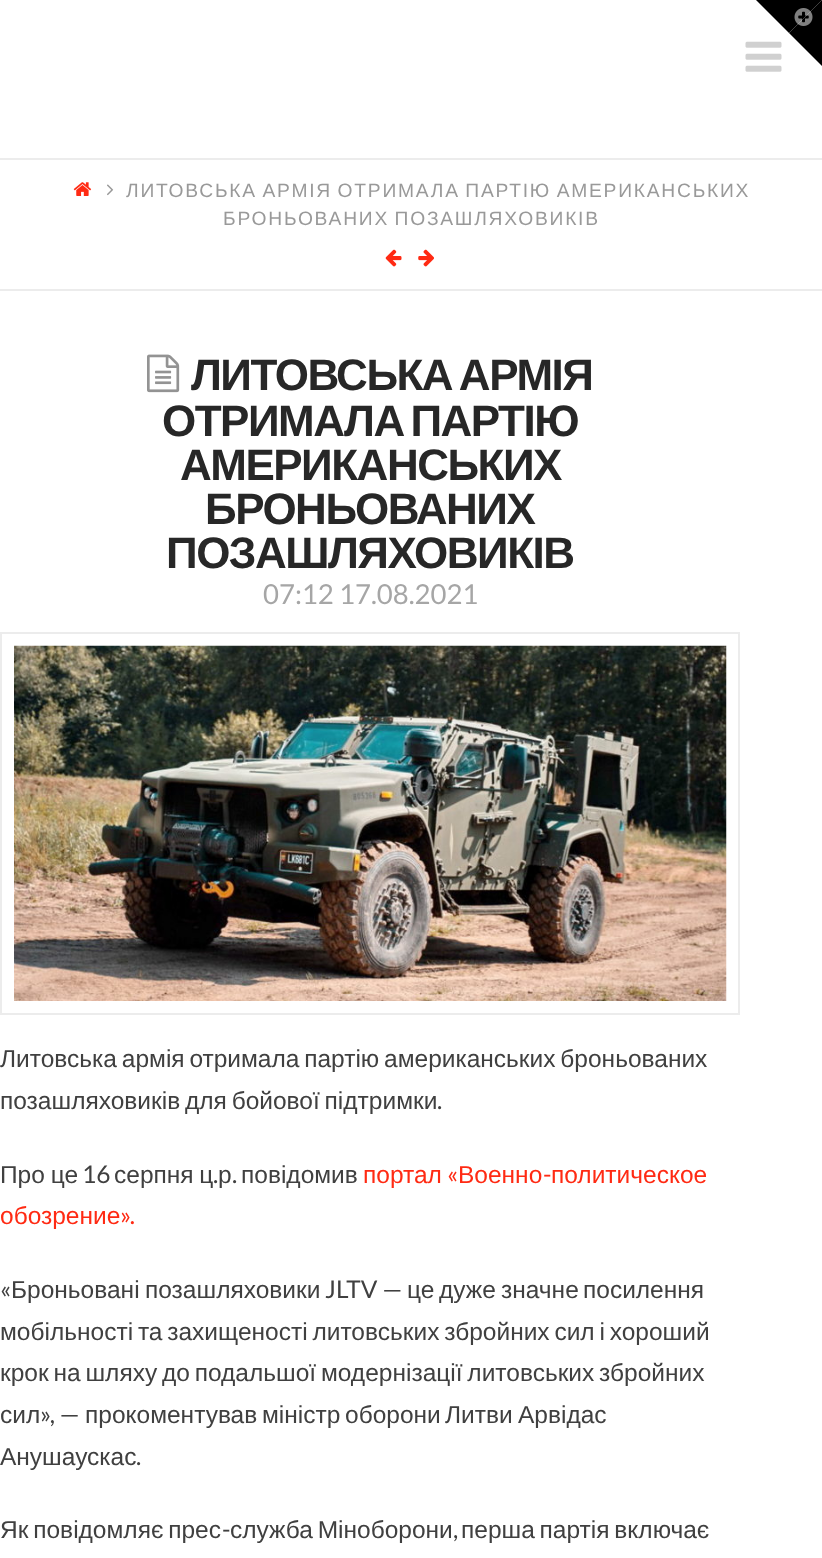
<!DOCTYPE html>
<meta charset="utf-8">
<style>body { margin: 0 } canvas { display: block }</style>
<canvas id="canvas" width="822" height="1558"></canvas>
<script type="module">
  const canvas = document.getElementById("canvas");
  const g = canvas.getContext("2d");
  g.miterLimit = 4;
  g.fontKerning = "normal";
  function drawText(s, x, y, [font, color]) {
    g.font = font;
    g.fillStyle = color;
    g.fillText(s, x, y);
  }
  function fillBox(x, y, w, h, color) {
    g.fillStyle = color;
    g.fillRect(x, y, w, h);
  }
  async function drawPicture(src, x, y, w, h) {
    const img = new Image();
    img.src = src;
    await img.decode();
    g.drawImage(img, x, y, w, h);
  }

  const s1 = ["19.25px Liberation Sans", "#999999"];
  const s2 = ["bold 44px Liberation Sans", "#272727"];
  const s3 = ["27.5px Lato", "#A6A6A6"];
  const s4 = ["24.5px Liberation Sans", "#404040"];
  const s5 = ["24.5px Lato", "#404040"];
  const s6 = ["24.5px Liberation Sans", "#FF2A13"];
  const s7 = ["24.5px Lato", "#FF2A13"];

  fillBox(0, 0, 822, 1558, "#FFFFFF");
  g.fillStyle = "#000000";
  g.beginPath();
  g.moveTo(756, 0);
  g.lineTo(822, 0);
  g.lineTo(789, 33);
  g.closePath();
  g.fill();
  g.beginPath();
  g.moveTo(822, 0);
  g.lineTo(822, 66);
  g.lineTo(789, 33);
  g.closePath();
  g.fill();
  await drawPicture("pic1.png", 794, 8, 19, 18);
  fillBox(0, 158, 822, 2, "#ECECEC");
  await drawPicture("pic2.png", 745, 41, 37, 31);
  fillBox(0, 289, 822, 2, "#ECECEC");
  await drawPicture("pic3.png", 73, 182, 19, 14);
  await drawPicture("pic4.png", 107, 184, 7, 12);
  g.letterSpacing = "1.75px";
  g.wordSpacing = "-1.5px";
  drawText("ЛИТОВСЬКА АРМІЯ ОТРИМАЛА ПАРТІЮ АМЕРИКАНСЬКИХ", 126, 197, s1);
  drawText("БРОНЬОВАНИХ ПОЗАШЛЯХОВИКІВ", 223, 225, s1);
  await drawPicture("pic5.png", 385, 249, 17, 18);
  await drawPicture("pic6.png", 418, 249, 16, 18);
  await drawPicture("pic7.png", 147, 354, 33, 39);
  g.letterSpacing = "-1.5px";
  g.wordSpacing = "-4px";
  drawText("ЛИТОВСЬКА АРМІЯ", 191, 390, s2);
  drawText("ОТРИМАЛА ПАРТІЮ", 162, 436, s2);
  g.wordSpacing = "0px";
  drawText("АМЕРИКАНСЬКИХ", 180, 480, s2);
  drawText("БРОНЬОВАНИХ", 205, 524, s2);
  drawText("ПОЗАШЛЯХОВИКІВ", 166, 568, s2);
  g.letterSpacing = "0px";
  drawText("07:12 17.08.2021", 263, 604, s3);
  g.strokeStyle = "#ECECEC";
  g.lineWidth = 2;
  g.strokeRect(1, 633, 738, 381);
  await drawPicture("pic8.png", 14, 645, 713, 356);
  g.wordSpacing = "-2px";
  drawText("Литовська армія отримала партію американських броньованих", 0, 1067, s4);
  drawText("позашляховиків для бойової підтримки", 0, 1109, s4);
  g.wordSpacing = "0px";
  drawText(".", 437, 1109, s5);
  g.wordSpacing = "-1px";
  drawText("Про це", 0, 1183, s4);
  g.wordSpacing = "0px";
  drawText("16", 82, 1183, s5);
  g.wordSpacing = "-1px";
  drawText("серпня ц", 114, 1183, s4);
  g.wordSpacing = "0px";
  drawText("р", 218, 1183, s4);
  drawText("повідомив", 241, 1183, s4);
  drawText("портал", 363, 1183, s6);
  drawText("«", 447, 1183, s7);
  drawText("Военно", 458, 1183, s6);
  drawText("-", 543, 1183, s7);
  drawText("политическое", 551, 1183, s6);
  drawText(".", 213, 1183, s5);
  drawText(".", 232, 1183, s5);
  drawText("обозрение", 0, 1224, s6);
  drawText("».", 120, 1224, s7);
  drawText("«", 0, 1298, s5);
  drawText("Броньовані", 11, 1298, s4);
  drawText("позашляховики", 145, 1298, s4);
  drawText("JLTV —", 325, 1298, s5);
  drawText("це", 407, 1298, s4);
  drawText("дуже", 439, 1298, s4);
  drawText("значне", 501, 1298, s4);
  drawText("посилення", 583, 1298, s4);
  g.wordSpacing = "-2px";
  drawText("мобільності та захищеності литовських збройних сил і хороший", 0, 1340, s4);
  drawText("крок на шляху до подальшої модернізації литовських збройних", 0, 1381, s4);
  g.wordSpacing = "0px";
  drawText("сил", 0, 1423, s4);
  drawText("», —", 40, 1423, s5);
  drawText("прокоментував", 85, 1423, s4);
  drawText("міністр", 262, 1423, s4);
  drawText("оборони", 345, 1423, s4);
  drawText("Литви", 445, 1423, s4);
  drawText("Арвідас", 518, 1423, s4);
  drawText("Анушаускас", 0, 1465, s4);
  drawText(".", 136, 1465, s5);
  g.wordSpacing = "-2px";
  drawText("Як повідомляє прес", 0, 1538, s4);
  g.wordSpacing = "0px";
  drawText("-", 222, 1538, s5);
  g.wordSpacing = "-2px";
  drawText("служба Міноборони", 230, 1538, s4);
  drawText("перша партія включає", 461, 1538, s4);
  g.wordSpacing = "0px";
  drawText(",", 453, 1538, s5);
</script>
